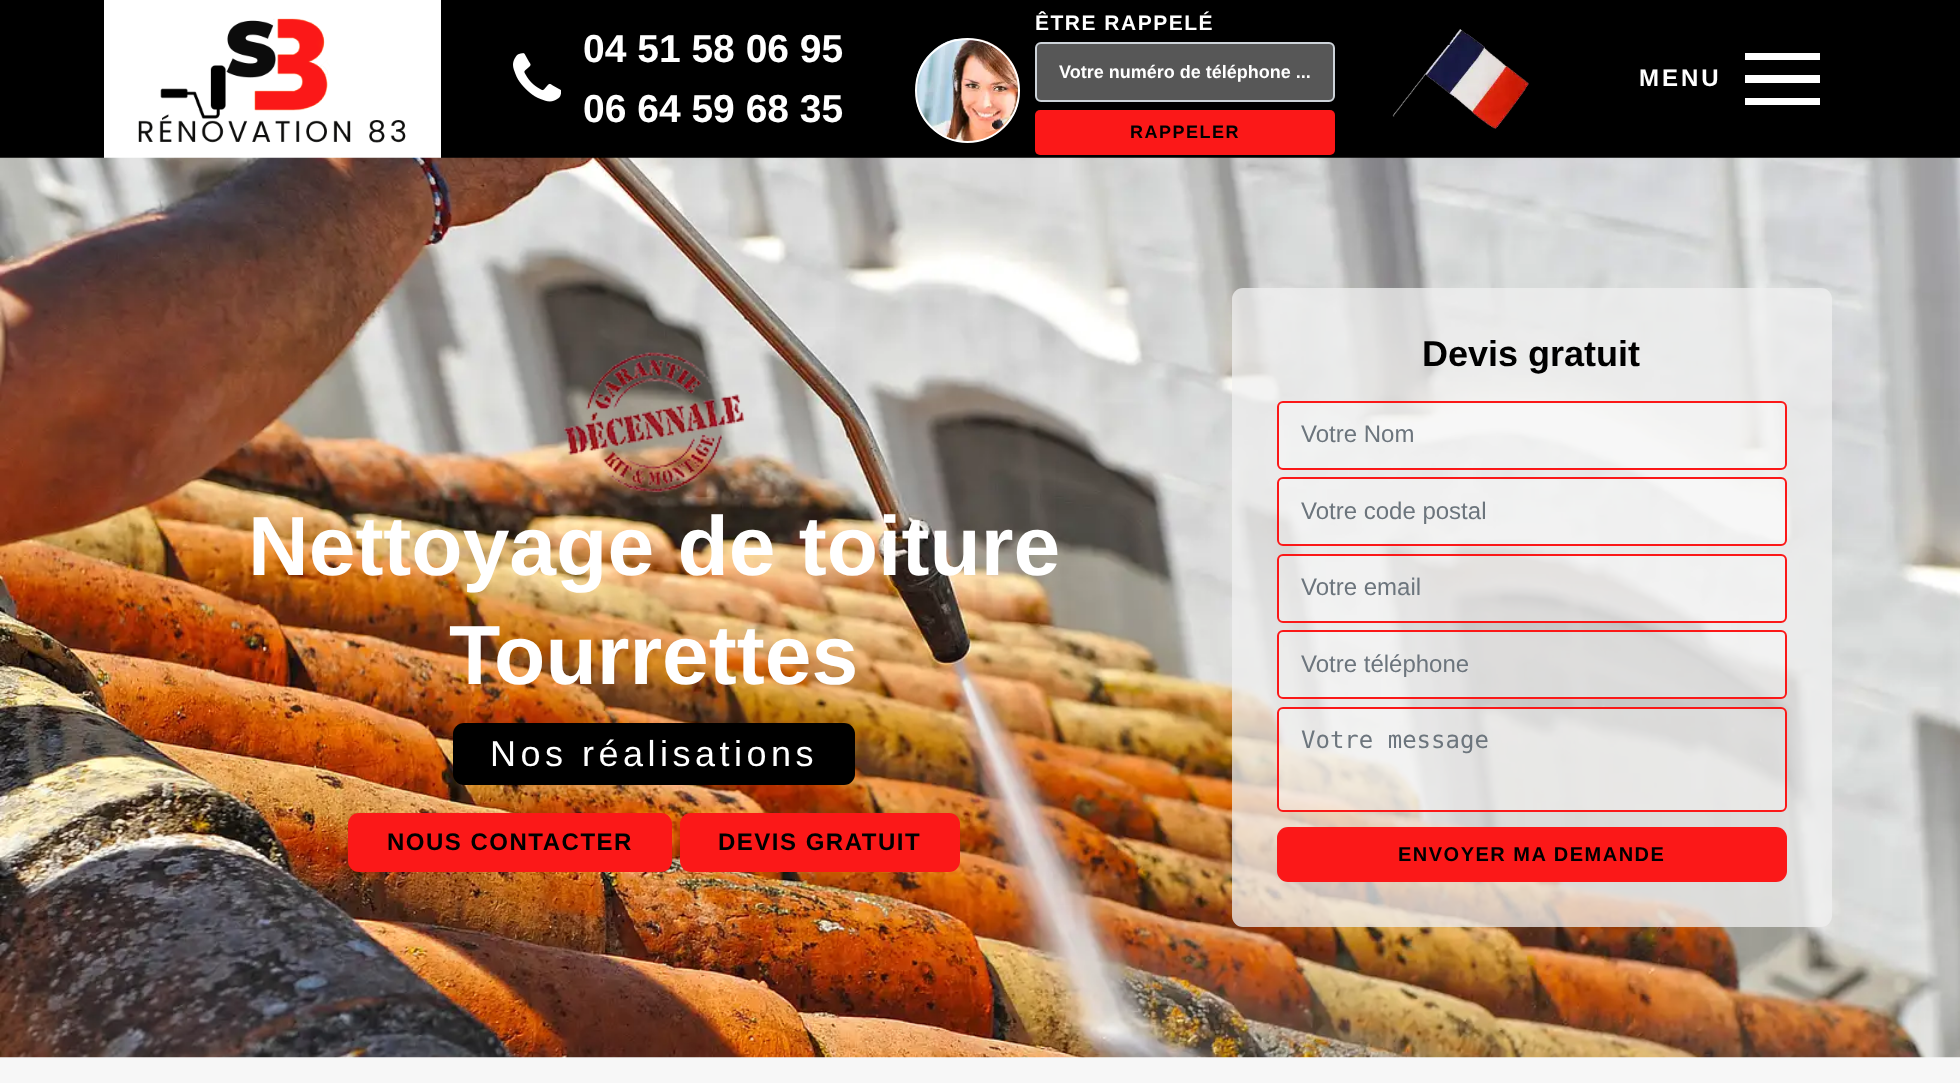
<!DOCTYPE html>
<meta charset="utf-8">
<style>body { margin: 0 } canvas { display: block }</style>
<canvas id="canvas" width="1960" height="1083"></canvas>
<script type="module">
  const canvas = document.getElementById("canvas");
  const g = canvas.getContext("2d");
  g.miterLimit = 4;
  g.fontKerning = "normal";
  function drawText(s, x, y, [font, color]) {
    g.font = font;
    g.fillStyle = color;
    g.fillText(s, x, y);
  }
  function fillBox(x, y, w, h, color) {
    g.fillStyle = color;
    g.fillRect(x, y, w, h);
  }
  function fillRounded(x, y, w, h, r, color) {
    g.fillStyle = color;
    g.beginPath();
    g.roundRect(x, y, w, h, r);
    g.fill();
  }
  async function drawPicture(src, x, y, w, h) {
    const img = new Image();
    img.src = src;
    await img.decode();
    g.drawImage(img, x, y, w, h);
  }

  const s1 = ["bold 39px Liberation Sans", "#FFFFFF"];
  const s2 = ["bold 21px Liberation Sans", "#FFFFFF"];
  const s3 = ["bold 18px Liberation Sans", "#FFFFFF"];
  const s4 = ["bold 18px Liberation Sans", "#000000"];
  const s5 = ["bold 24px Liberation Sans", "#FFFFFF"];
  const s6 = ["bold 84px Liberation Sans", "#FFFFFF"];
  const s7 = ["36px Liberation Sans", "#FFFFFF"];
  const s8 = ["bold 24px Liberation Sans", "#000000"];
  const s9 = ["bold 36px Liberation Sans", "#000000"];
  const s10 = ["24px Liberation Sans", "#6C757D"];
  const s11 = ["24px DejaVu Sans Mono", "#6C757D"];
  const s12 = ["bold 20px Liberation Sans", "#000000"];

  fillBox(0, 0, 1960, 1083, "#000000");
  fillBox(104, 0, 337, 158, "#FFFFFF");
  await drawPicture("pic1.png", 138, 18, 268, 125);
  await drawPicture("pic2.png", 513, 53, 48, 49);
  drawText("04 51 58 06 95", 583, 62, s1);
  drawText("06 64 59 68 35", 583, 122, s1);
  g.letterSpacing = "1.5px";
  drawText("ÊTRE RAPPELÉ", 1035, 30, s2);
  await drawPicture("pic3.png", 916, 39, 103, 102);
  g.beginPath();
  g.arc(967.5, 90.5, 51.5, 0, Math.PI * 2);
  g.strokeStyle = "#FFFFFF";
  g.lineWidth = 2;
  g.stroke();
  g.fillStyle = "#575757";
  g.beginPath();
  g.roundRect(1036, 43, 298, 58, 5);
  g.fill();
  g.strokeStyle = "#CED4DA";
  g.stroke();
  g.letterSpacing = "0px";
  drawText("Votre numéro de téléphone ...", 1059, 78, s3);
  fillRounded(1035, 110, 300, 45, 5, "#FB1818");
  g.letterSpacing = "1.5px";
  drawText("RAPPELER", 1130, 138, s4);
  await drawPicture("pic4.png", 1392, 29, 137, 100);
  g.letterSpacing = "3px";
  drawText("MENU", 1639, 86, s5);
  fillBox(1745, 53, 75, 7, "#FFFFFF");
  fillBox(1745, 75, 75, 8, "#FFFFFF");
  fillBox(1745, 98, 75, 7, "#FFFFFF");
  fillBox(0, 1057, 1960, 26, "#F7F7F7");
  await drawPicture("pic5.png", 0, 157, 1960, 901);
  await drawPicture("pic6.png", 564, 352, 180, 141);
  g.letterSpacing = "0px";
  drawText("Nettoyage de toiture", 248, 575, s6);
  drawText("Tourrettes", 449, 684, s6);
  fillRounded(453, 723, 402, 62, 11, "#000000");
  g.letterSpacing = "4.5px";
  drawText("Nos réalisations", 490, 766, s7);
  fillRounded(348, 813, 324, 59, 11, "#FB1818");
  g.letterSpacing = "1.5px";
  drawText("NOUS CONTACTER", 387, 850, s8);
  fillRounded(680, 813, 280, 59, 11, "#FB1818");
  drawText("DEVIS GRATUIT", 718, 850, s8);
  fillRounded(1232, 288, 600, 639, 11, "rgba(239, 239, 239, 0.76)");
  g.letterSpacing = "0px";
  drawText("Devis gratuit", 1422, 366, s9);
  g.fillStyle = "rgba(255, 255, 255, 0.34)";
  g.beginPath();
  g.roundRect(1278, 402, 508, 67, 5);
  g.fill();
  g.strokeStyle = "#FB1818";
  g.stroke();
  drawText("Votre Nom", 1301, 442, s10);
  g.fillStyle = "rgba(255, 255, 255, 0.34)";
  g.beginPath();
  g.roundRect(1278, 478, 508, 67, 5);
  g.fill();
  g.stroke();
  drawText("Votre code postal", 1301, 519, s10);
  g.fillStyle = "rgba(255, 255, 255, 0.34)";
  g.beginPath();
  g.roundRect(1278, 555, 508, 67, 5);
  g.fill();
  g.stroke();
  drawText("Votre email", 1301, 595, s10);
  g.fillStyle = "rgba(255, 255, 255, 0.34)";
  g.beginPath();
  g.roundRect(1278, 631, 508, 67, 5);
  g.fill();
  g.stroke();
  drawText("Votre téléphone", 1301, 672, s10);
  g.fillStyle = "rgba(255, 255, 255, 0.34)";
  g.beginPath();
  g.roundRect(1278, 708, 508, 103, 5);
  g.fill();
  g.stroke();
  drawText("Votre message", 1301, 748, s11);
  fillRounded(1277, 827, 510, 55, 11, "#FB1818");
  g.letterSpacing = "1.5px";
  drawText("ENVOYER MA DEMANDE", 1398, 861, s12);
</script>
